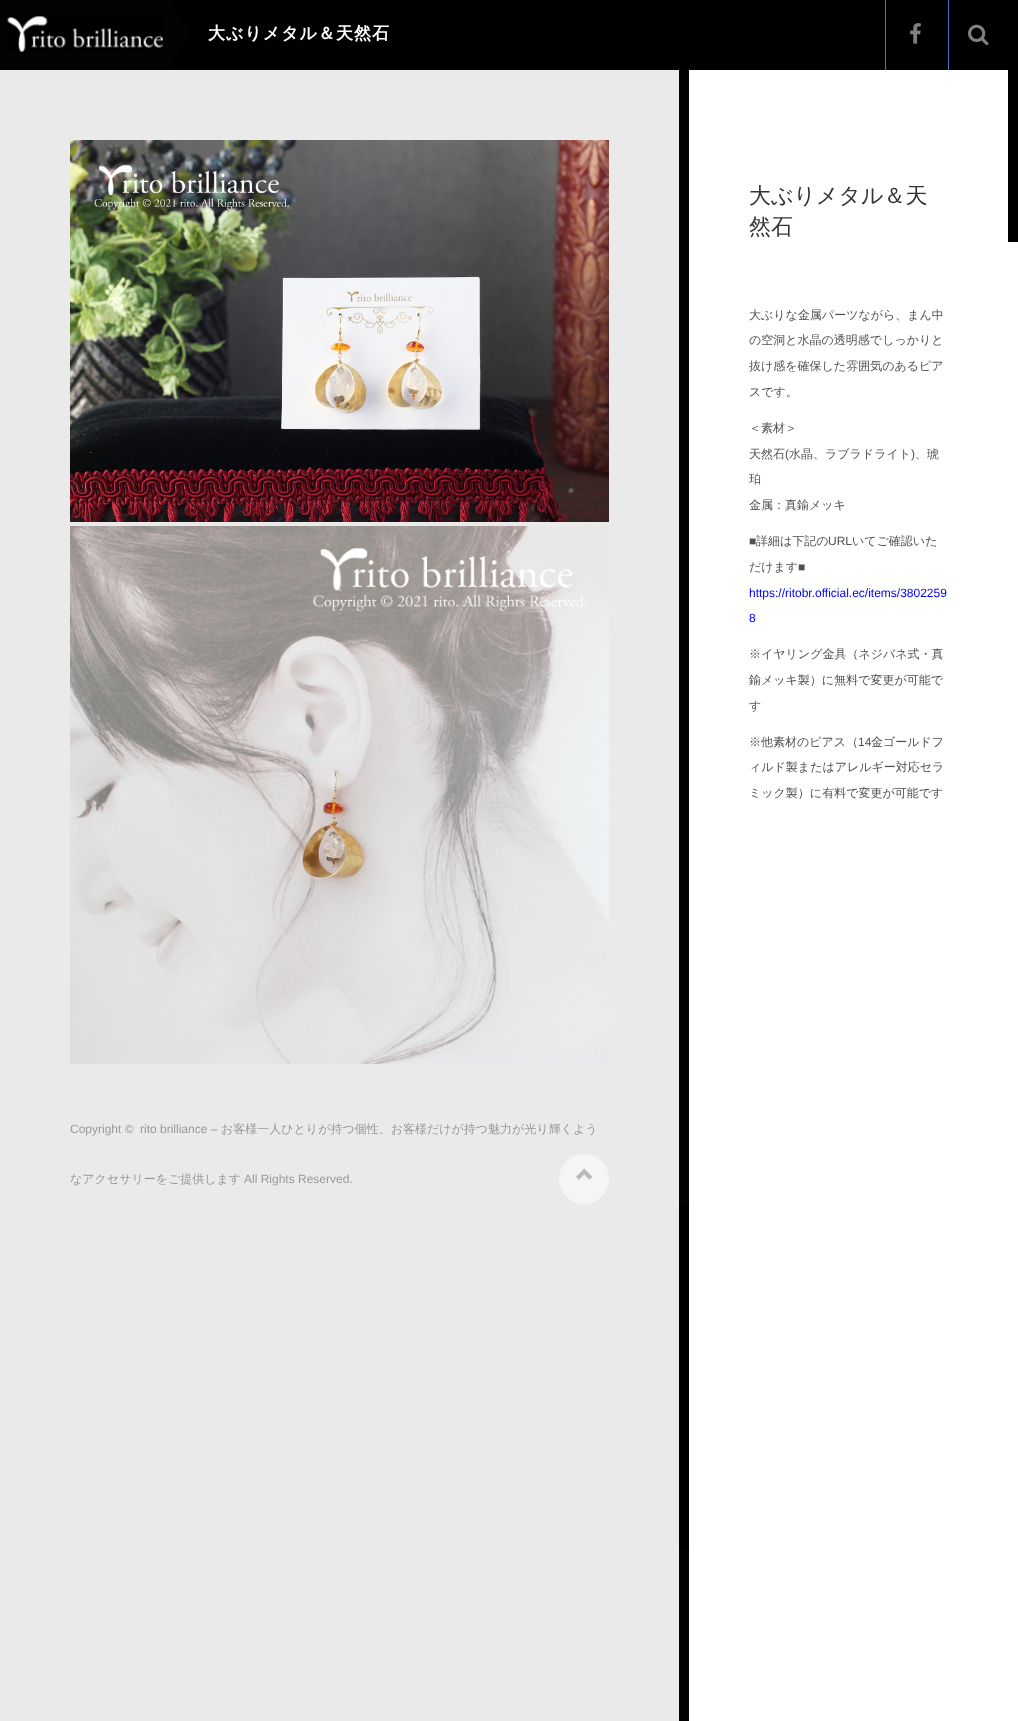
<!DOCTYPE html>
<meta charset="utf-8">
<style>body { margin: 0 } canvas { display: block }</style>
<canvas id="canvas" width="1018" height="1721"></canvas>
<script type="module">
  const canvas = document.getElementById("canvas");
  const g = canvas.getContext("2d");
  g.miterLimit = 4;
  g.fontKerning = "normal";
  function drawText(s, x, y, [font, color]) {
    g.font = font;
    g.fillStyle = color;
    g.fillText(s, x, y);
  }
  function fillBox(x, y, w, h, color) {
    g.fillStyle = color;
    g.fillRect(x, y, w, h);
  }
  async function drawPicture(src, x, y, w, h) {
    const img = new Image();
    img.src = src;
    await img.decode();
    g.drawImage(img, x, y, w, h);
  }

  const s1 = ["bold 17px WenQuanYi Zen Hei", "#FFFFFF"];
  const s2 = ["500 22px WenQuanYi Zen Hei", "#333333"];
  const s3 = ["500 12px WenQuanYi Zen Hei", "#505050"];
  const s4 = ["12px Liberation Sans", "#505050"];
  const s5 = ["12px Liberation Sans", "#0000FF"];
  const s6 = ["12px Liberation Sans", "#999999"];
  const s7 = ["500 12px WenQuanYi Zen Hei", "#999999"];

  fillBox(0, 0, 1018, 1721, "#EAEAEA");
  fillBox(0, 0, 1008, 70, "#000000");
  fillBox(0, 0, 170, 66, "#030303");
  await drawPicture("pic1.png", 7, 16, 157, 36);
  g.beginPath();
  g.moveTo(170, 66);
  g.lineTo(170, 0);
  g.lineTo(190, 33);
  g.closePath();
  g.fill();
  g.letterSpacing = "1px";
  drawText("大ぶりメタル＆天然石", 208, 39, s1);
  fillBox(885, 0, 1, 70, "#566AD1");
  await drawPicture("pic2.png", 910, 23, 11, 21);
  fillBox(948, 0, 1, 70, "#566AD1");
  await drawPicture("pic3.png", 968, 24, 21, 22);
  fillBox(689, 70, 329, 1651, "#FFFFFF");
  fillBox(1008, 0, 10, 242, "#000000");
  fillBox(679, 70, 10, 1651, "#030303");
  fillBox(679, 1205, 10, 345, "#000000");
  g.letterSpacing = "0px";
  drawText("大ぶりメタル＆天", 749, 203, s2);
  drawText("然石", 749, 234, s2);
  drawText("大ぶりな金属パーツながら、まん中", 749, 319, s3);
  drawText("の空洞と水晶の透明感でしっかりと", 749, 344, s3);
  drawText("抜け感を確保した雰囲気のあるピア", 749, 370, s3);
  drawText("スです。", 749, 396, s3);
  drawText("＜素材＞", 749, 432, s3);
  drawText("天然石", 749, 458, s3);
  drawText("(", 785, 458, s4);
  drawText("水晶、ラブラドライト", 789, 458, s3);
  drawText(")", 911, 458, s4);
  drawText("、琥", 915, 458, s3);
  drawText("珀", 749, 483, s3);
  drawText("金属：真鍮メッキ", 749, 509, s3);
  drawText("■", 749, 545, s4);
  drawText("詳細は下記の", 756, 545, s3);
  drawText("URL", 828, 545, s4);
  drawText("いてご確認いた", 852, 545, s3);
  drawText("だけます", 749, 571, s3);
  drawText("■", 798, 571, s4);
  drawText("https://ritobr.official.ec/items/3802259", 749, 597, s5);
  drawText("8", 749, 622, s5);
  drawText("※イヤリング金具（ネジバネ式・真", 749, 658, s3);
  drawText("鍮メッキ製）に無料で変更が可能で", 749, 684, s3);
  drawText("す", 749, 710, s3);
  drawText("※他素材のピアス（", 749, 746, s3);
  drawText("14", 858, 746, s4);
  drawText("金ゴールドフ", 871, 746, s3);
  drawText("ィルド製またはアレルギー対応セラ", 749, 771, s3);
  drawText("ミック製）に有料で変更が可能です", 749, 797, s3);
  await drawPicture("pic4.png", 70, 140, 539, 382);
  await drawPicture("pic5.png", 70, 526, 539, 538);
  drawText("Copyright ©", 70, 1133, s6);
  drawText("rito brilliance –", 140, 1133, s6);
  drawText("お客様一人ひとりが持つ個性、お客様だけが持つ魅力が光り輝くよう", 221, 1133, s7);
  drawText("なアクセサリーをご提供します", 70, 1183, s7);
  drawText("All Rights Reserved.", 244, 1183, s6);
  g.fillStyle = "#F5F5F5";
  g.beginPath();
  g.arc(584, 1179, 25, 0, Math.PI * 2);
  g.fill();
  await drawPicture("pic6.png", 576, 1168, 17, 12);
</script>
